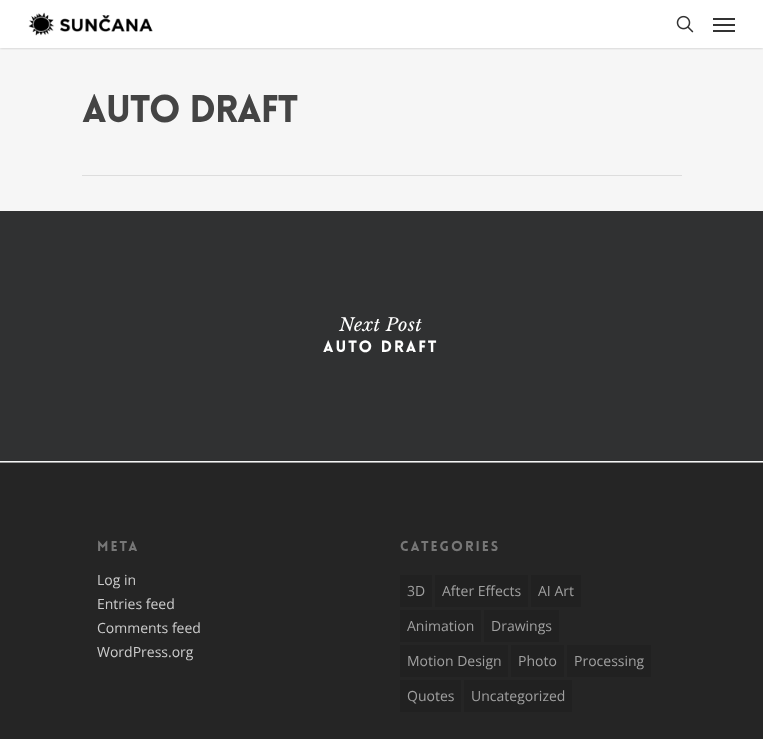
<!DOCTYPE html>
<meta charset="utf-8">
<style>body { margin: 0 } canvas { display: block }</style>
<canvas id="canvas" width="763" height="739"></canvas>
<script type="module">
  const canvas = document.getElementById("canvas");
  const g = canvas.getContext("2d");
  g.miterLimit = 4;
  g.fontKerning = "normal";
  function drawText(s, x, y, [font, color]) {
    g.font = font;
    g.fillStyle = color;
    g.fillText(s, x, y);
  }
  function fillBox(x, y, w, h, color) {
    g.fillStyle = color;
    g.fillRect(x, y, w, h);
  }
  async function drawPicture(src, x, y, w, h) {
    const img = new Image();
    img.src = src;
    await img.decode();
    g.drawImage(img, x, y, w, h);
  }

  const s1 = ["900 37.75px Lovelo", "#444444"];
  const s2 = ["italic 18px Libre Baskerville", "#FFFFFF"];
  const s3 = ["900 16px Lovelo", "#FFFFFF"];
  const s4 = ["900 14px Lovelo", "#777777"];
  const s5 = ["14px Open Sans", "#CCCCCC"];
  const s6 = ["14px Open Sans", "#A0A0A0"];

  fillBox(0, 0, 763, 739, "#FFFFFF");
  fillBox(0, 48, 763, 414, "#F6F6F6");
  g.save();
  g.beginPath();
  g.rect(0, 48, 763, 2);
  g.clip();
  g.fillStyle = "rgba(0, 0, 0, 0.22)";
  g.filter = "blur(1.5px)";
  g.beginPath();
  g.rect(0, 0, 763, 48);
  g.fill();
  g.filter = "none";
  g.restore();
  await drawPicture("pic1.png", 28, 12, 125, 24);
  await drawPicture("pic2.png", 676, 15, 18, 18);
  fillBox(713, 18, 22, 2, "#333333");
  fillBox(713, 30, 22, 2, "#333333");
  fillBox(713, 24, 22, 2, "#333333");
  fillBox(82, 175, 600, 1, "#DDDDDD");
  g.letterSpacing = "-1px";
  drawText("AUTO DRAFT", 82, 122, s1);
  fillBox(0, 211, 763, 250, "#303132");
  g.letterSpacing = "0.5px";
  drawText("Next Post", 339, 331, s2);
  g.letterSpacing = "2px";
  drawText("Auto Draft", 323, 352, s3);
  fillBox(0, 462, 763, 1, "#999999");
  fillBox(0, 463, 763, 276, "#252525");
  drawText("Meta", 97, 551, s4);
  g.letterSpacing = "0px";
  drawText("Log in", 97, 585, s5);
  drawText("Entries feed", 97, 609, s5);
  drawText("Comments feed", 97, 633, s5);
  drawText("WordPress.org", 97, 657, s5);
  g.letterSpacing = "2px";
  drawText("Categories", 400, 551, s4);
  fillBox(400, 575, 32, 32, "#212121");
  g.letterSpacing = "0px";
  drawText("3D", 407, 596, s6);
  fillBox(435, 575, 93, 32, "#212121");
  drawText("After Effects", 442, 596, s6);
  fillBox(531, 575, 50, 32, "#212121");
  drawText("AI Art", 538, 596, s6);
  fillBox(400, 610, 81, 32, "#212121");
  drawText("Animation", 407, 631, s6);
  fillBox(484, 610, 75, 32, "#212121");
  drawText("Drawings", 491, 631, s6);
  fillBox(400, 645, 108, 32, "#212121");
  drawText("Motion Design", 407, 666, s6);
  fillBox(511, 645, 53, 32, "#212121");
  drawText("Photo", 518, 666, s6);
  fillBox(567, 645, 84, 32, "#212121");
  drawText("Processing", 574, 666, s6);
  fillBox(400, 680, 61, 32, "#212121");
  drawText("Quotes", 407, 701, s6);
  fillBox(464, 680, 108, 32, "#212121");
  drawText("Uncategorized", 471, 701, s6);
</script>
